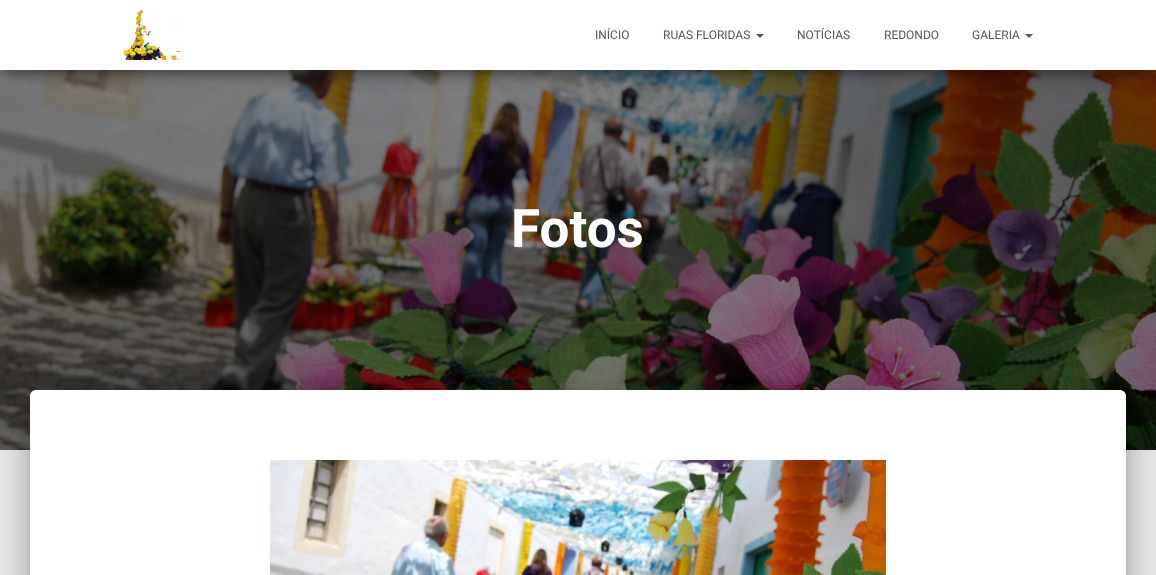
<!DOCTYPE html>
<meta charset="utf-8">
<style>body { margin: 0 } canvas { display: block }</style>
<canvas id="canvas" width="1156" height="575"></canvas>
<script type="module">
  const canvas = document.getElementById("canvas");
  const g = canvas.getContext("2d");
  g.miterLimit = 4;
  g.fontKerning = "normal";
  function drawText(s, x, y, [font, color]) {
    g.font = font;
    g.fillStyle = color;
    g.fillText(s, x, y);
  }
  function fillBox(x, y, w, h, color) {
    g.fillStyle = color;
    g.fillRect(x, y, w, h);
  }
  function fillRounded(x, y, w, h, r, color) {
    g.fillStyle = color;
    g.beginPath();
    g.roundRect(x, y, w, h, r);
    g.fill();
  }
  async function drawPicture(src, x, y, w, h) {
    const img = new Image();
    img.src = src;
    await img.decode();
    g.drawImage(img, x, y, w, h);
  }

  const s1 = ["12px Roboto", "#555555"];
  const s2 = ["bold 53px Roboto", "#FFFFFF"];

  fillBox(0, 0, 1156, 575, "#E5E5E5");
  await drawPicture("pic2.png", 0, 70, 1156, 380);
  g.fillStyle = "rgba(0, 0, 0, 0.2)";
  g.filter = "blur(5px)";
  g.beginPath();
  g.rect(5, 13, 1146, 60);
  g.fill();
  g.filter = "none";
  g.fillStyle = "rgba(0, 0, 0, 0.12)";
  g.filter = "blur(10px)";
  g.beginPath();
  g.rect(0, 3, 1156, 70);
  g.fill();
  g.filter = "none";
  g.fillStyle = "rgba(0, 0, 0, 0.42)";
  g.filter = "blur(10px)";
  g.beginPath();
  g.rect(12, 22, 1132, 46);
  g.fill();
  g.filter = "none";
  fillBox(0, 0, 1156, 70, "#FFFFFF");
  await drawPicture("pic1.png", 123, 10, 59, 50);
  drawText("INÍCIO", 595, 39, s1);
  drawText("RUAS FLORIDAS", 663, 39, s1);
  g.beginPath();
  g.moveTo(756, 34);
  g.lineTo(764, 34);
  g.lineTo(760, 38);
  g.closePath();
  g.fill();
  drawText("NOTÍCIAS", 797, 39, s1);
  drawText("REDONDO", 884, 39, s1);
  drawText("GALERIA", 972, 39, s1);
  g.beginPath();
  g.moveTo(1025, 34);
  g.lineTo(1033, 34);
  g.lineTo(1029, 38);
  g.closePath();
  g.fill();
  drawText("Fotos", 511, 247, s2);
  g.fillStyle = "rgba(0, 0, 0, 0.2)";
  g.filter = "blur(5px)";
  g.beginPath();
  g.roundRect(35, 403, 1086, 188, 1);
  g.fill();
  g.filter = "none";
  g.fillStyle = "rgba(0, 0, 0, 0.12)";
  g.filter = "blur(15px)";
  g.beginPath();
  g.roundRect(25, 391, 1106, 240, 11);
  g.fill();
  g.filter = "none";
  g.fillStyle = "rgba(0, 0, 0, 0.14)";
  g.filter = "blur(12px)";
  g.beginPath();
  g.roundRect(28, 404, 1100, 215, 8);
  g.fill();
  g.filter = "none";
  fillRounded(30, 390, 1096, 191, 6, "#FFFFFF");
  await drawPicture("pic3.png", 270, 460, 616, 115);
</script>
